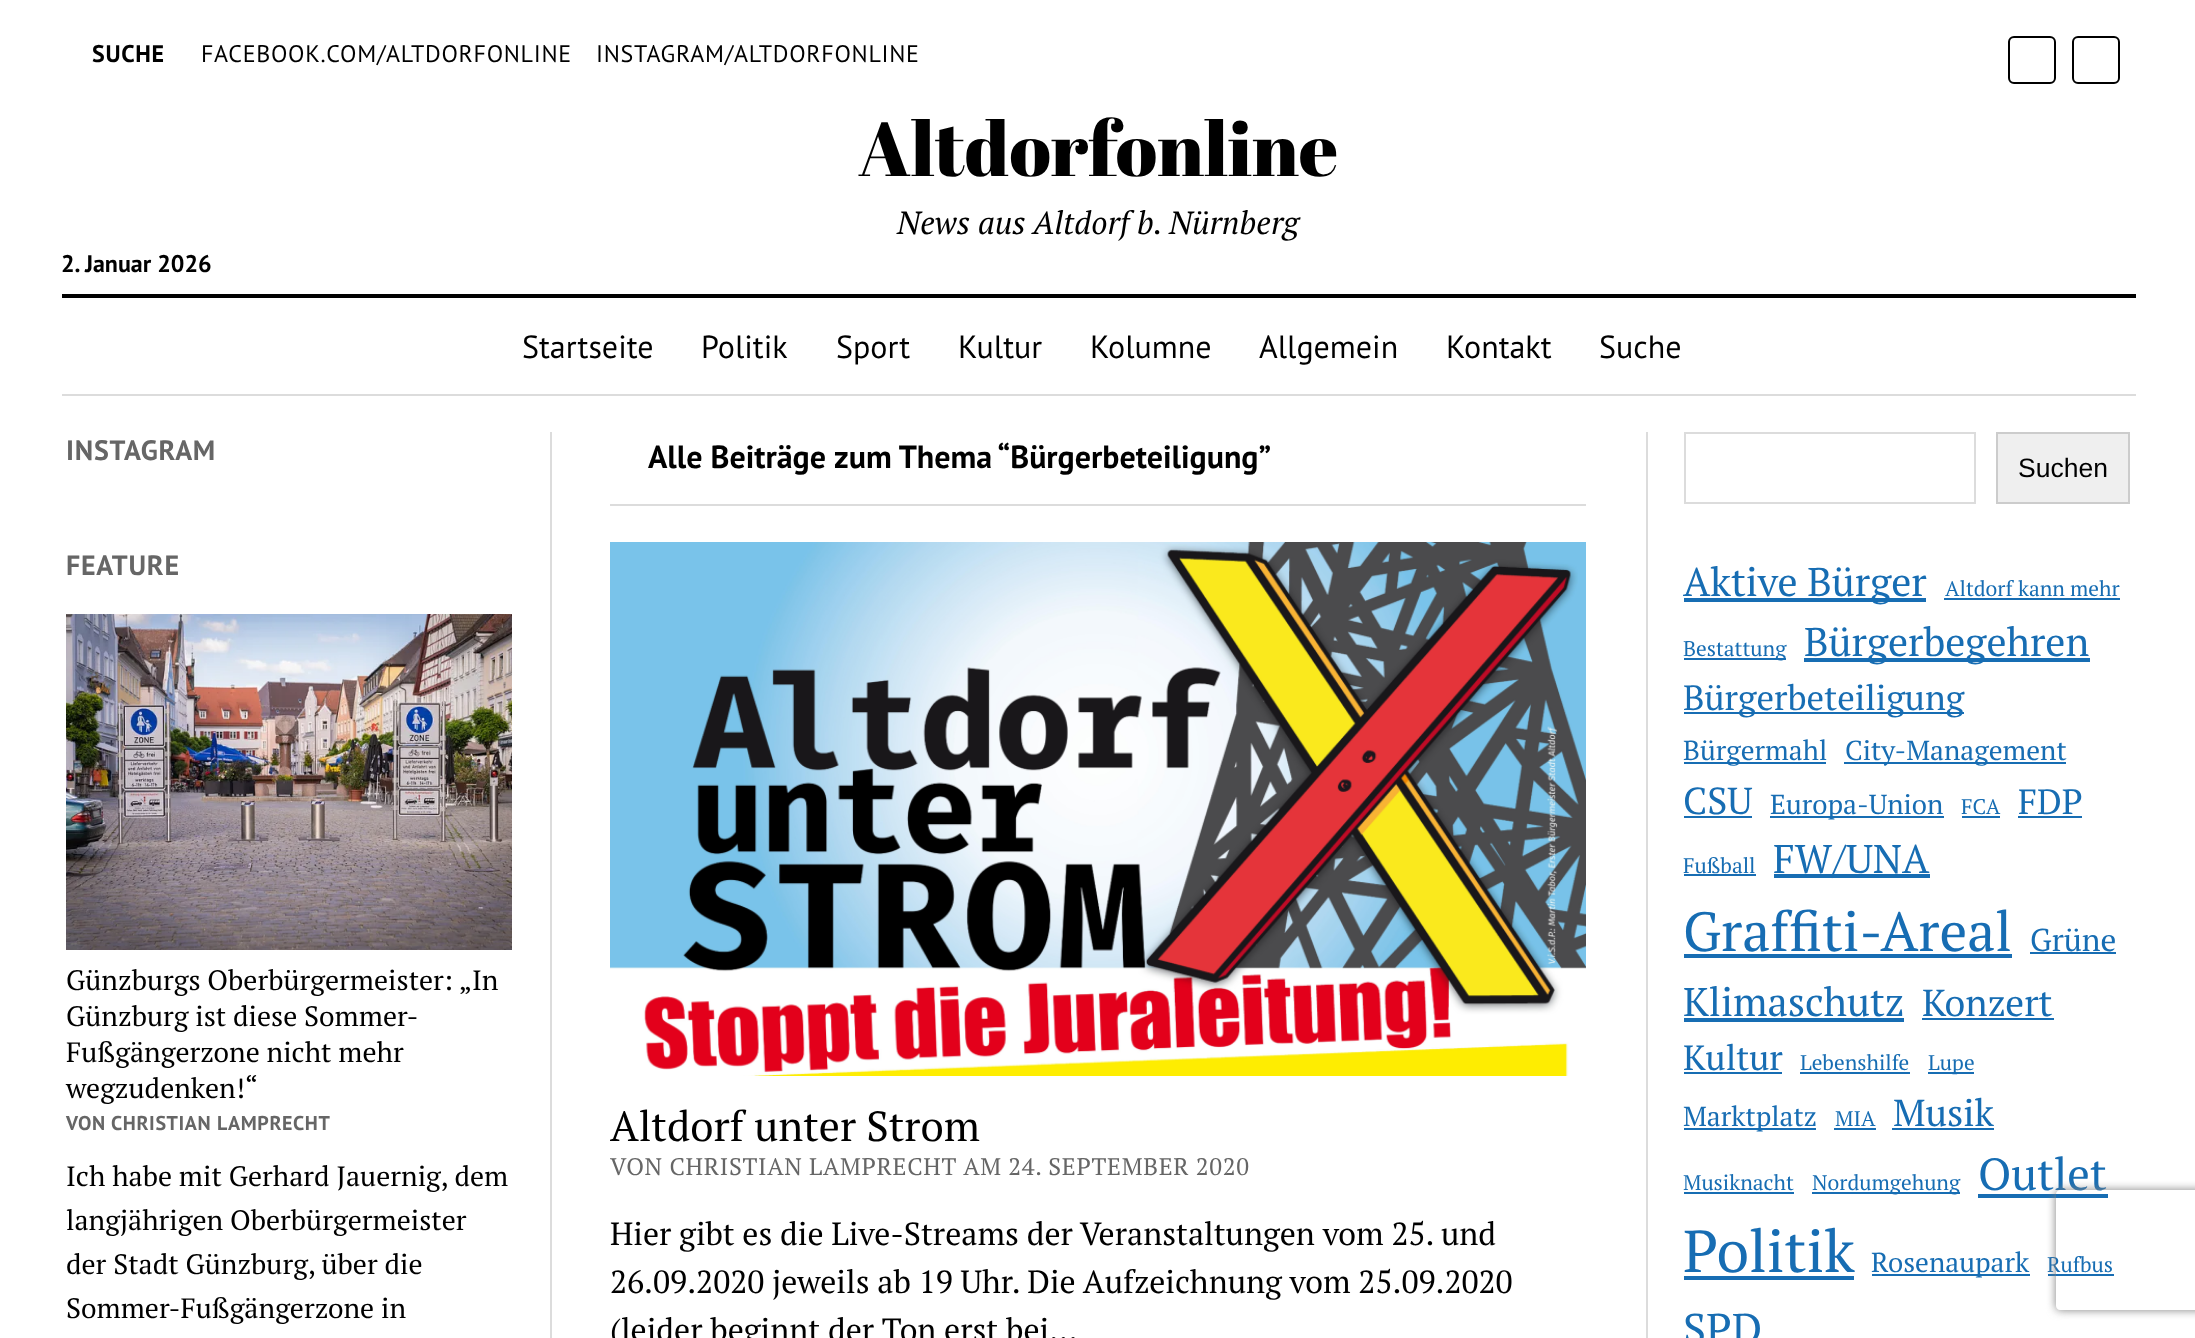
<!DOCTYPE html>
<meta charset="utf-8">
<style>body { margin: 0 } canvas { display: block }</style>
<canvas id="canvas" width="2195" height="1338"></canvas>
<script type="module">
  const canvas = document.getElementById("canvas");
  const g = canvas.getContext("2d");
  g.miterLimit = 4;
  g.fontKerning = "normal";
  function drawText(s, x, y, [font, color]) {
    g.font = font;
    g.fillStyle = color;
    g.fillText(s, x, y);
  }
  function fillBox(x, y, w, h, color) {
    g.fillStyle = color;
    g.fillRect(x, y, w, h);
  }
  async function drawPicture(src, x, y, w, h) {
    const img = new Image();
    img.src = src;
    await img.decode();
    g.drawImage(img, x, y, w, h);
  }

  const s1 = ["bold 24px PT Sans", "#000000"];
  const s2 = ["24px PT Sans", "#000000"];
  const s3 = ["76px Abril Fatface", "#000000"];
  const s4 = ["italic 32px PT Serif", "#000000"];
  const s5 = ["32px PT Sans", "#000000"];
  const s6 = ["bold 28px PT Sans", "#666666"];
  const s7 = ["28px PT Serif", "#000000"];
  const s8 = ["bold 20px PT Sans", "#666666"];
  const s9 = ["bold 32px PT Sans", "#000000"];
  const s10 = ["42px PT Serif", "#000000"];
  const s11 = ["24px PT Serif", "#666666"];
  const s12 = ["32px PT Serif", "#000000"];
  const s13 = ["26.5px Liberation Sans", "#000000"];
  const s14 = ["40px PT Serif", "#176DB3"];
  const s15 = ["21.25px PT Serif", "#176DB3"];
  const s16 = ["35px PT Serif", "#176DB3"];
  const s17 = ["27.5px PT Serif", "#176DB3"];
  const s18 = ["37.5px PT Serif", "#176DB3"];
  const s19 = ["55.25px PT Serif", "#176DB3"];
  const s20 = ["31.5px PT Serif", "#176DB3"];
  const s21 = ["45px PT Serif", "#176DB3"];
  const s22 = ["59px PT Serif", "#176DB3"];
  const s23 = ["43px PT Serif", "#176DB3"];

  fillBox(0, 0, 2195, 1338, "#FFFFFF");
  g.letterSpacing = "0.7px";
  drawText("SUCHE", 92, 62, s1);
  drawText("FACEBOOK.COM/ALTDORFONLINE", 201, 62, s2);
  drawText("INSTAGRAM/ALTDORFONLINE", 596, 62, s2);
  g.beginPath();
  g.roundRect(2009, 37, 46, 46, 5);
  g.strokeStyle = "#000000";
  g.lineWidth = 2;
  g.stroke();
  g.beginPath();
  g.roundRect(2073, 37, 46, 46, 5);
  g.stroke();
  g.letterSpacing = "0px";
  drawText("Altdorfonline", 858, 176, s3);
  drawText("News aus Altdorf b. Nürnberg", 897, 234, s4);
  drawText("2. Januar 2026", 61, 272, s1);
  fillBox(62, 294, 2074, 4, "#000000");
  fillBox(62, 394, 2074, 2, "#DCDCDC");
  drawText("Startseite", 522, 358, s5);
  drawText("Politik", 701, 358, s5);
  drawText("Sport", 836, 358, s5);
  drawText("Kultur", 958, 358, s5);
  drawText("Kolumne", 1090, 358, s5);
  drawText("Allgemein", 1259, 358, s5);
  drawText("Kontakt", 1446, 358, s5);
  drawText("Suche", 1599, 358, s5);
  fillBox(550, 432, 2, 906, "#DCDCDC");
  fillBox(1646, 432, 2, 906, "#DCDCDC");
  g.letterSpacing = "0.75px";
  drawText("INSTAGRAM", 66, 460, s6);
  drawText("FEATURE", 66, 575, s6);
  await drawPicture("pic1.png", 66, 614, 446, 336);
  g.letterSpacing = "0px";
  drawText("Günzburgs Oberbürgermeister: „In", 66, 990, s7);
  drawText("Günzburg ist diese Sommer-", 66, 1026, s7);
  drawText("Fußgängerzone nicht mehr", 66, 1062, s7);
  drawText("wegzudenken!“", 66, 1098, s7);
  g.letterSpacing = "0.6px";
  drawText("VON CHRISTIAN LAMPRECHT", 66, 1130, s8);
  g.letterSpacing = "0px";
  drawText("Ich habe mit Gerhard Jauernig, dem", 66, 1186, s7);
  drawText("langjährigen Oberbürgermeister", 66, 1230, s7);
  drawText("der Stadt Günzburg, über die", 66, 1274, s7);
  drawText("Sommer-Fußgängerzone in", 66, 1318, s7);
  fillBox(610, 504, 976, 2, "#DCDCDC");
  drawText("Alle Beiträge zum Thema “Bürgerbeteiligung”", 648, 468, s9);
  await drawPicture("pic2.png", 610, 542, 976, 534);
  drawText("Altdorf unter Strom", 610, 1141, s10);
  g.letterSpacing = "0.7px";
  drawText("VON CHRISTIAN LAMPRECHT AM 24. SEPTEMBER 2020", 610, 1175, s11);
  g.letterSpacing = "0px";
  drawText("Hier gibt es die Live-Streams der Veranstaltungen vom 25. und", 610, 1245, s12);
  drawText("26.09.2020 jeweils ab 19 Uhr. Die Aufzeichnung vom 25.09.2020", 610, 1293, s12);
  drawText("(leider beginnt der Ton erst bei…", 610, 1341, s12);
  g.strokeStyle = "#DCDCDC";
  g.strokeRect(1685, 433, 290, 70);
  g.fillStyle = "#EFEFEF";
  g.beginPath();
  g.rect(1997, 433, 132, 70);
  g.fill();
  g.strokeStyle = "#CCCCCC";
  g.stroke();
  drawText("Suchen", 2018, 477, s13);
  fillBox(1684, 598, 242, 4, "#176DB3");
  drawText("Aktive Bürger", 1683, 596, s14);
  drawText("Altdorf kann mehr", 1945, 596, s15);
  fillBox(1944, 598, 176, 2, "#176DB3");
  fillBox(1684, 658, 102, 2, "#176DB3");
  drawText("Bestattung", 1683, 656, s15);
  fillBox(1804, 658, 286, 4, "#176DB3");
  drawText("Bürgerbegehren", 1804, 656, s14);
  fillBox(1684, 712, 280, 2, "#176DB3");
  drawText("Bürgerbeteiligung", 1683, 710, s16);
  fillBox(1684, 762, 142, 2, "#176DB3");
  drawText("Bürgermahl", 1683, 760, s17);
  fillBox(1844, 762, 222, 2, "#176DB3");
  drawText("City-Management", 1845, 760, s17);
  drawText("CSU", 1683, 814, s18);
  fillBox(1684, 816, 68, 2, "#176DB3");
  fillBox(1770, 816, 174, 2, "#176DB3");
  drawText("Europa-Union", 1770, 814, s17);
  drawText("FCA", 1961, 814, s15);
  fillBox(1962, 816, 38, 2, "#176DB3");
  drawText("FDP", 2018, 814, s16);
  fillBox(2018, 816, 64, 2, "#176DB3");
  drawText("Fußball", 1683, 873, s15);
  fillBox(1684, 874, 72, 2, "#176DB3");
  fillBox(1774, 874, 156, 4, "#176DB3");
  drawText("FW/UNA", 1773, 873, s14);
  drawText("Graffiti-Areal", 1683, 951, s19);
  fillBox(1684, 954, 328, 4, "#176DB3");
  drawText("Grüne", 2030, 951, s20);
  fillBox(2030, 952, 86, 2, "#176DB3");
  drawText("Klimaschutz", 1683, 1016, s14);
  fillBox(1684, 1018, 220, 4, "#176DB3");
  drawText("Konzert", 1922, 1016, s18);
  fillBox(1922, 1018, 132, 2, "#176DB3");
  drawText("Kultur", 1683, 1070, s16);
  fillBox(1684, 1072, 98, 2, "#176DB3");
  drawText("Lebenshilfe", 1800, 1070, s15);
  fillBox(1800, 1072, 110, 2, "#176DB3");
  fillBox(1928, 1072, 46, 2, "#176DB3");
  drawText("Lupe", 1928, 1070, s15);
  fillBox(1684, 1128, 132, 2, "#176DB3");
  drawText("Marktplatz", 1683, 1126, s17);
  drawText("MIA", 1835, 1126, s15);
  fillBox(1834, 1128, 42, 2, "#176DB3");
  drawText("Musik", 1893, 1126, s18);
  fillBox(1892, 1128, 102, 2, "#176DB3");
  drawText("Musiknacht", 1683, 1190, s15);
  fillBox(1684, 1192, 110, 2, "#176DB3");
  fillBox(1812, 1192, 148, 2, "#176DB3");
  drawText("Nordumgehung", 1812, 1190, s15);
  drawText("Outlet", 1978, 1190, s21);
  fillBox(1978, 1194, 130, 4, "#176DB3");
  drawText("Politik", 1683, 1272, s22);
  fillBox(1684, 1276, 170, 4, "#176DB3");
  fillBox(1872, 1274, 158, 2, "#176DB3");
  drawText("Rosenaupark", 1871, 1272, s17);
  drawText("Rufbus", 2047, 1272, s15);
  fillBox(2048, 1274, 66, 2, "#176DB3");
  drawText("SPD", 1683, 1344, s23);
  g.save();
  g.beginPath();
  g.moveTo(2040, 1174);
  g.lineTo(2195, 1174);
  g.lineTo(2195, 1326);
  g.lineTo(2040, 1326);
  g.closePath();
  g.moveTo(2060, 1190);
  g.lineTo(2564, 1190);
  g.bezierCurveTo(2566, 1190, 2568, 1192, 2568, 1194);
  g.lineTo(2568, 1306);
  g.bezierCurveTo(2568, 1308, 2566, 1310, 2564, 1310);
  g.lineTo(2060, 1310);
  g.bezierCurveTo(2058, 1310, 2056, 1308, 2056, 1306);
  g.lineTo(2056, 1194);
  g.bezierCurveTo(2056, 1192, 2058, 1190, 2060, 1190);
  g.closePath();
  g.clip("evenodd");
  g.fillStyle = "#808080";
  g.filter = "blur(5px)";
  g.beginPath();
  g.roundRect(2056, 1190, 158, 120, 4);
  g.fill();
  g.filter = "none";
  g.restore();
</script>
